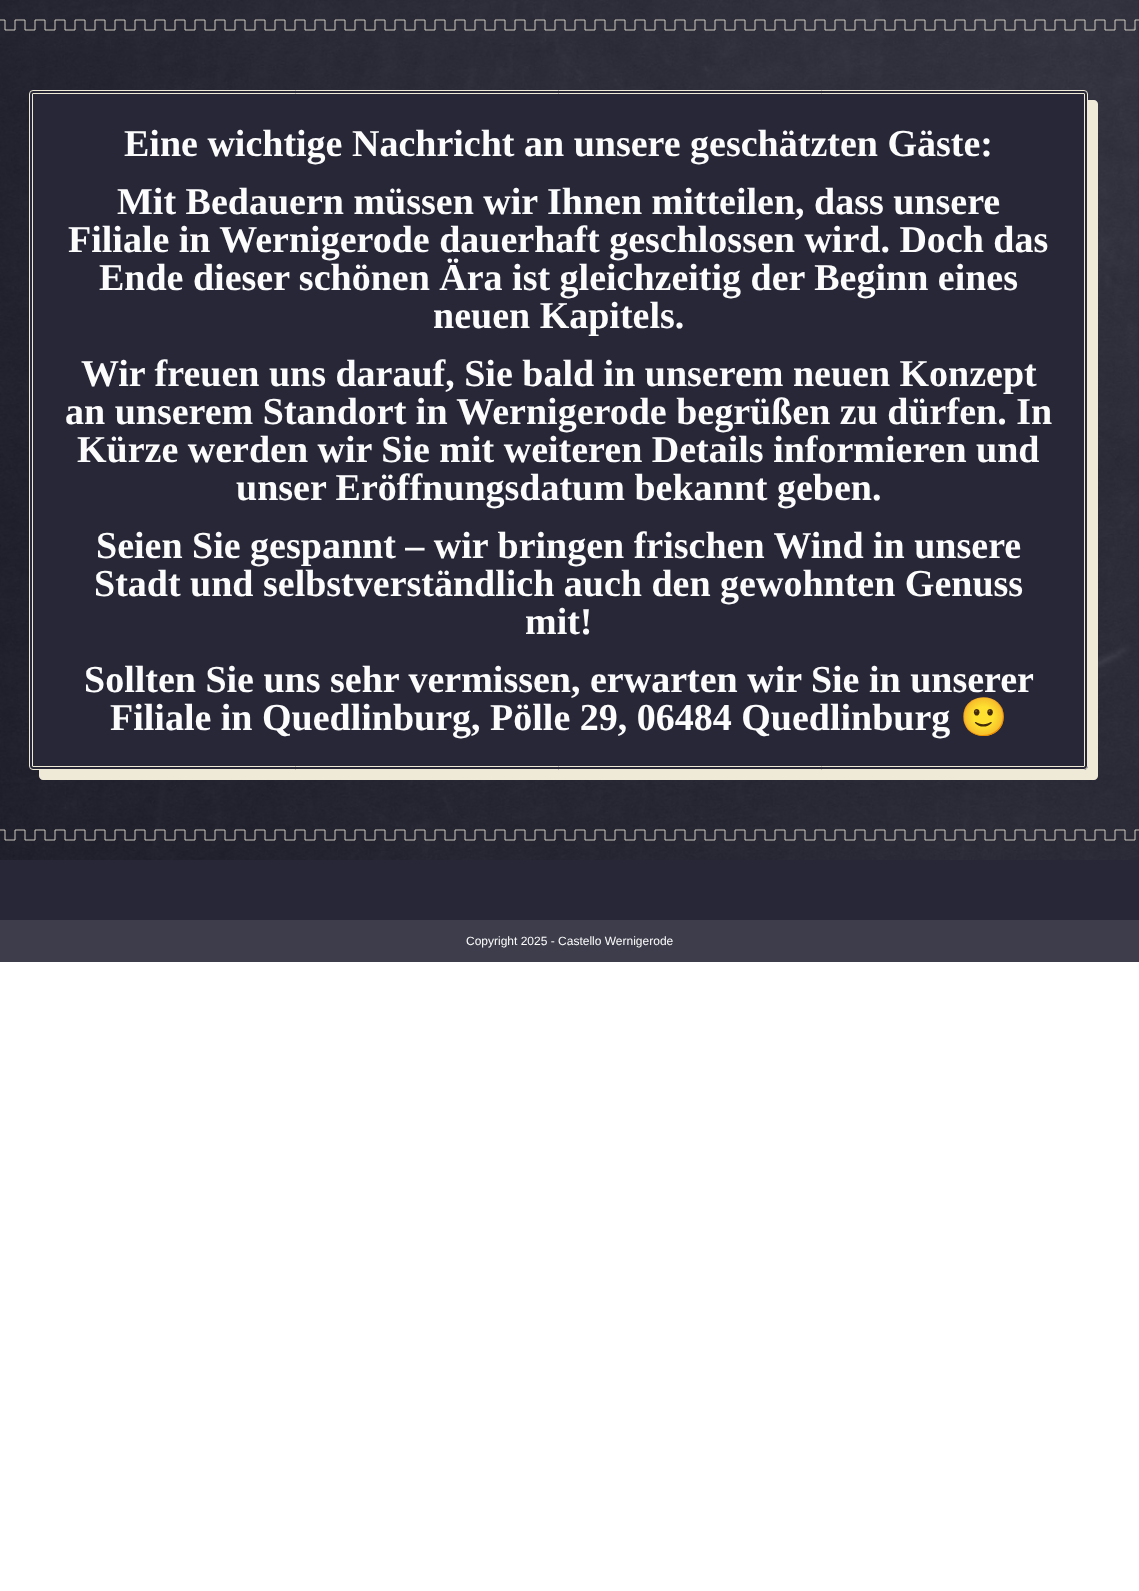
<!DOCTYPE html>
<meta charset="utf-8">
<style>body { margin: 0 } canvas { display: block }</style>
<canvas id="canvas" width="1139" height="1591"></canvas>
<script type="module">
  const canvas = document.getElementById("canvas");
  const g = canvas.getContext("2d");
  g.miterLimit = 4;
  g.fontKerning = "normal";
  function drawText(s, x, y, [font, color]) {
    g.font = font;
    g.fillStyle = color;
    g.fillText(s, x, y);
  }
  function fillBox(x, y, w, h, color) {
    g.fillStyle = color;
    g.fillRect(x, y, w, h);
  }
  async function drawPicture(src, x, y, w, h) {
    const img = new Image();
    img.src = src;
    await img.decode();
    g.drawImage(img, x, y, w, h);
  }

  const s1 = ["bold 38px Liberation Serif", "#FCFCFC"];
  const s2 = ["bold 38px Noto Color Emoji", "#FCFCFC"];
  const s3 = ["12px Liberation Sans", "#FCFCFC"];

  fillBox(0, 0, 1139, 1591, "#FFFFFF");
  fillBox(0, 0, 1139, 920, "#272738");
  await drawPicture("pic1.png", 0, 0, 1139, 50);
  await drawPicture("pic2.png", 0, 19, 1139, 12);
  await drawPicture("pic3.png", 0, 50, 1139, 810);
  g.fillStyle = "#EFE9D8";
  g.beginPath();
  g.moveTo(39, 770);
  g.lineTo(39, 776);
  g.bezierCurveTo(39, 778, 41, 780, 43, 780);
  g.lineTo(1094, 780);
  g.bezierCurveTo(1096, 780, 1098, 778, 1098, 776);
  g.lineTo(1098, 104);
  g.bezierCurveTo(1098, 102, 1096, 100, 1094, 100);
  g.lineTo(1088, 100);
  g.lineTo(1088, 766);
  g.bezierCurveTo(1088, 768, 1086, 770, 1084, 770);
  g.closePath();
  g.fill();
  g.fillStyle = "#272738";
  g.beginPath();
  g.roundRect(29.5, 90.5, 1058, 679, 3.5);
  g.fill();
  g.strokeStyle = "#EFE9D8";
  g.stroke();
  g.beginPath();
  g.roundRect(32.5, 93.5, 1052, 673, 0.5);
  g.stroke();
  drawText("Eine wichtige Nachricht an unsere geschätzten Gäste:", 124, 156, s1);
  drawText("Mit Bedauern müssen wir Ihnen mitteilen, dass unsere", 117, 214, s1);
  drawText("Filiale in Wernigerode dauerhaft geschlossen wird. Doch das", 68, 252, s1);
  drawText("Ende dieser schönen Ära ist gleichzeitig der Beginn eines", 99, 290, s1);
  drawText("neuen Kapitels.", 433, 328, s1);
  drawText("Wir freuen uns darauf, Sie bald in unserem neuen Konzept", 81, 386, s1);
  drawText("an unserem Standort in Wernigerode begrüßen zu dürfen. In", 65, 424, s1);
  drawText("Kürze werden wir Sie mit weiteren Details informieren und", 77, 462, s1);
  drawText("unser Eröffnungsdatum bekannt geben.", 236, 500, s1);
  drawText("Seien Sie gespannt – wir bringen frischen Wind in unsere", 96, 558, s1);
  drawText("Stadt und selbstverständlich auch den gewohnten Genuss", 94, 596, s1);
  drawText("mit!", 525, 634, s1);
  drawText("Sollten Sie uns sehr vermissen, erwarten wir Sie in unserer", 84, 692, s1);
  drawText("Filiale in Quedlinburg, Pölle 29, 06484 Quedlinburg", 110, 730, s1);
  drawText("🙂", 960, 730, s2);
  await drawPicture("pic4.png", 0, 829, 1139, 12);
  fillBox(0, 920, 1139, 42, "#3D3D4C");
  drawText("Copyright 2025 - Castello Wernigerode", 466, 945, s3);
</script>
